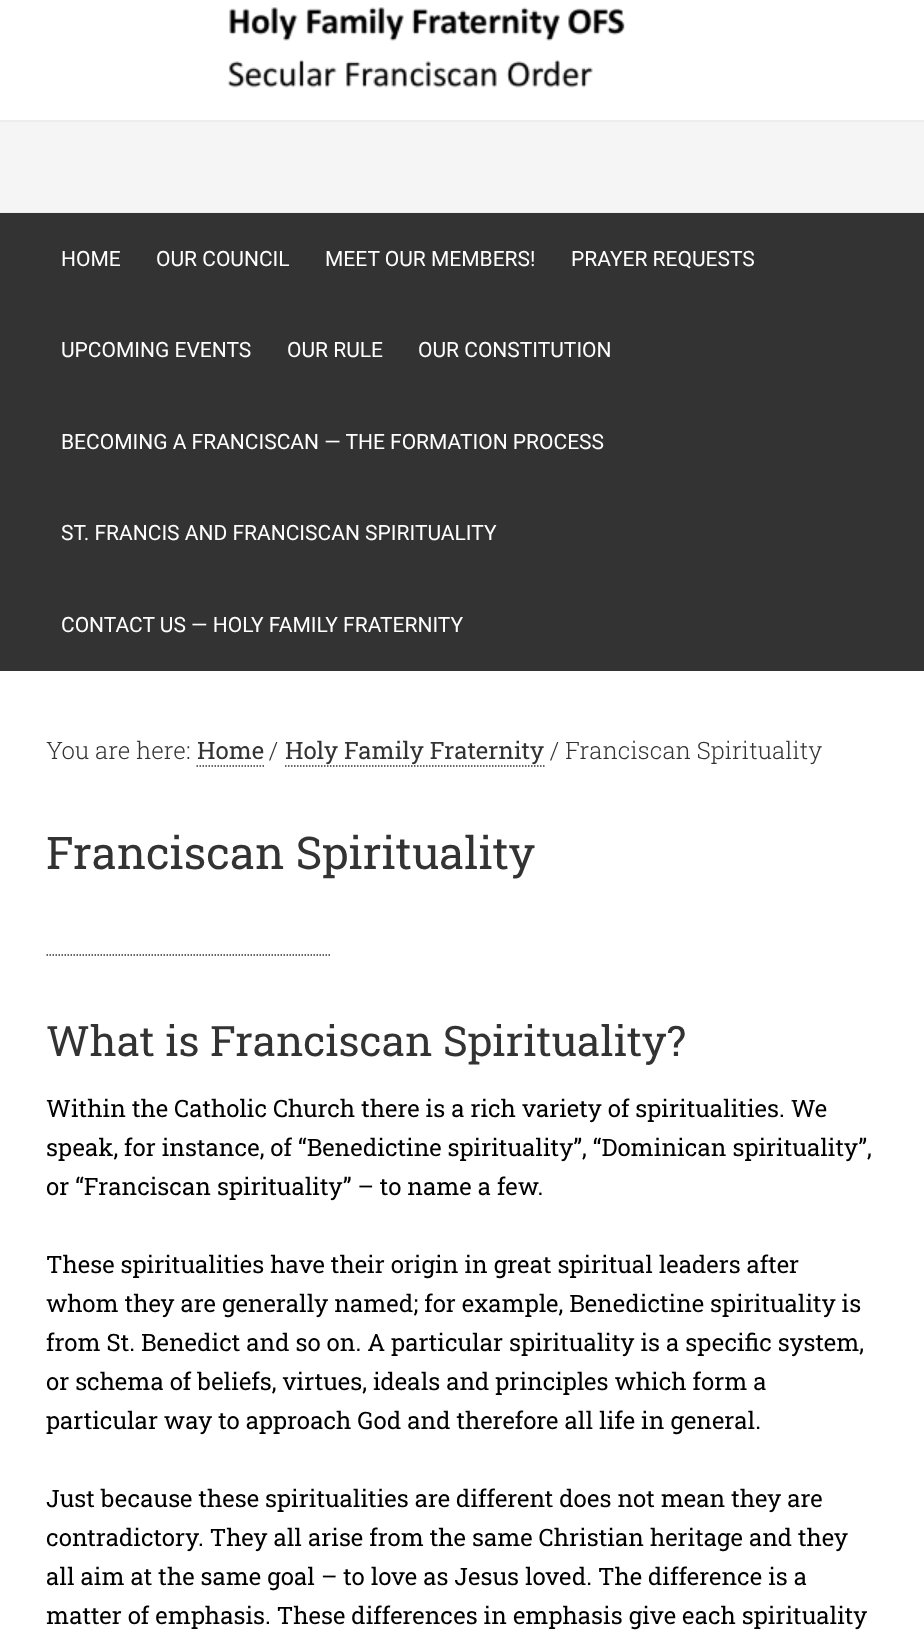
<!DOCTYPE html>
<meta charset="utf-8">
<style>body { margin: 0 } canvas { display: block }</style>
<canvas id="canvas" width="924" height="1634"></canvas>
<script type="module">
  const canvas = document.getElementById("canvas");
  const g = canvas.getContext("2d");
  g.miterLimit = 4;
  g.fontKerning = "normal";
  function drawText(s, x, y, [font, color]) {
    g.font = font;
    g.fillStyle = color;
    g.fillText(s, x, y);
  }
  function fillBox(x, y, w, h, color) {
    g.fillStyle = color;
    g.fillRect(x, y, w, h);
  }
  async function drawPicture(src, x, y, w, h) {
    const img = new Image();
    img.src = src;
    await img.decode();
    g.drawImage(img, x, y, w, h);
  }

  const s1 = ["21px Roboto", "#FFFFFF"];
  const s2 = ["300 24px Roboto Slab", "#333333"];
  const s3 = ["24px Roboto Slab", "#333333"];
  const s4 = ["45px Roboto Slab", "#333333"];
  const s5 = ["42px Roboto Slab", "#333333"];
  const s6 = ["24px Roboto Slab", "#000000"];

  fillBox(0, 0, 924, 1634, "#FFFFFF");
  fillBox(0, 120, 924, 2, "#EEEEEE");
  await drawPicture("pic1.png", 227, 7, 398, 81);
  fillBox(0, 122, 924, 90, "#F5F5F5");
  fillBox(0, 212, 924, 1, "#EEEEEE");
  fillBox(0, 213, 924, 458, "#333333");
  drawText("HOME", 61, 266, s1);
  drawText("OUR COUNCIL", 156, 266, s1);
  drawText("MEET OUR MEMBERS!", 325, 266, s1);
  drawText("PRAYER REQUESTS", 571, 266, s1);
  drawText("UPCOMING EVENTS", 61, 357, s1);
  drawText("OUR RULE", 287, 357, s1);
  drawText("OUR CONSTITUTION", 418, 357, s1);
  drawText("BECOMING A FRANCISCAN — THE FORMATION PROCESS", 61, 449, s1);
  drawText("ST. FRANCIS AND FRANCISCAN SPIRITUALITY", 61, 540, s1);
  drawText("CONTACT US — HOLY FAMILY FRATERNITY", 61, 632, s1);
  drawText("You are here:", 46, 759, s2);
  drawText("Home", 197, 759, s3);
  g.beginPath();
  g.moveTo(196.5, 766);
  g.lineTo(264, 766);
  g.strokeStyle = "#333333";
  g.lineWidth = 1.5;
  g.setLineDash([1.5, 1.5]);
  g.stroke();
  drawText("/", 269, 759, s2);
  drawText("Holy Family Fraternity", 285, 759, s3);
  g.beginPath();
  g.moveTo(285, 766);
  g.lineTo(544.5, 766);
  g.stroke();
  drawText("/ Franciscan Spirituality", 550, 759, s2);
  drawText("Franciscan Spirituality", 46, 869, s4);
  g.beginPath();
  g.moveTo(46.5, 955);
  g.lineTo(331.5, 955);
  g.stroke();
  drawText("What is Franciscan Spirituality?", 46, 1056, s5);
  drawText("Within the Catholic Church there is a rich variety of spiritualities. We", 46, 1117, s6);
  drawText("speak, for instance, of “Benedictine spirituality”, “Dominican spirituality”,", 46, 1156, s6);
  drawText("or “Franciscan spirituality” – to name a few.", 46, 1195, s6);
  drawText("These spiritualities have their origin in great spiritual leaders after", 46, 1273, s6);
  drawText("whom they are generally named; for example, Benedictine spirituality is", 46, 1312, s6);
  drawText("from St. Benedict and so on. A particular spirituality is a specific system,", 46, 1351, s6);
  drawText("or schema of beliefs, virtues, ideals and principles which form a", 46, 1390, s6);
  drawText("particular way to approach God and therefore all life in general.", 46, 1429, s6);
  drawText("Just because these spiritualities are different does not mean they are", 46, 1507, s6);
  drawText("contradictory. They all arise from the same Christian heritage and they", 46, 1546, s6);
  drawText("all aim at the same goal – to love as Jesus loved. The difference is a", 46, 1585, s6);
  drawText("matter of emphasis. These differences in emphasis give each spirituality", 46, 1624, s6);
</script>
